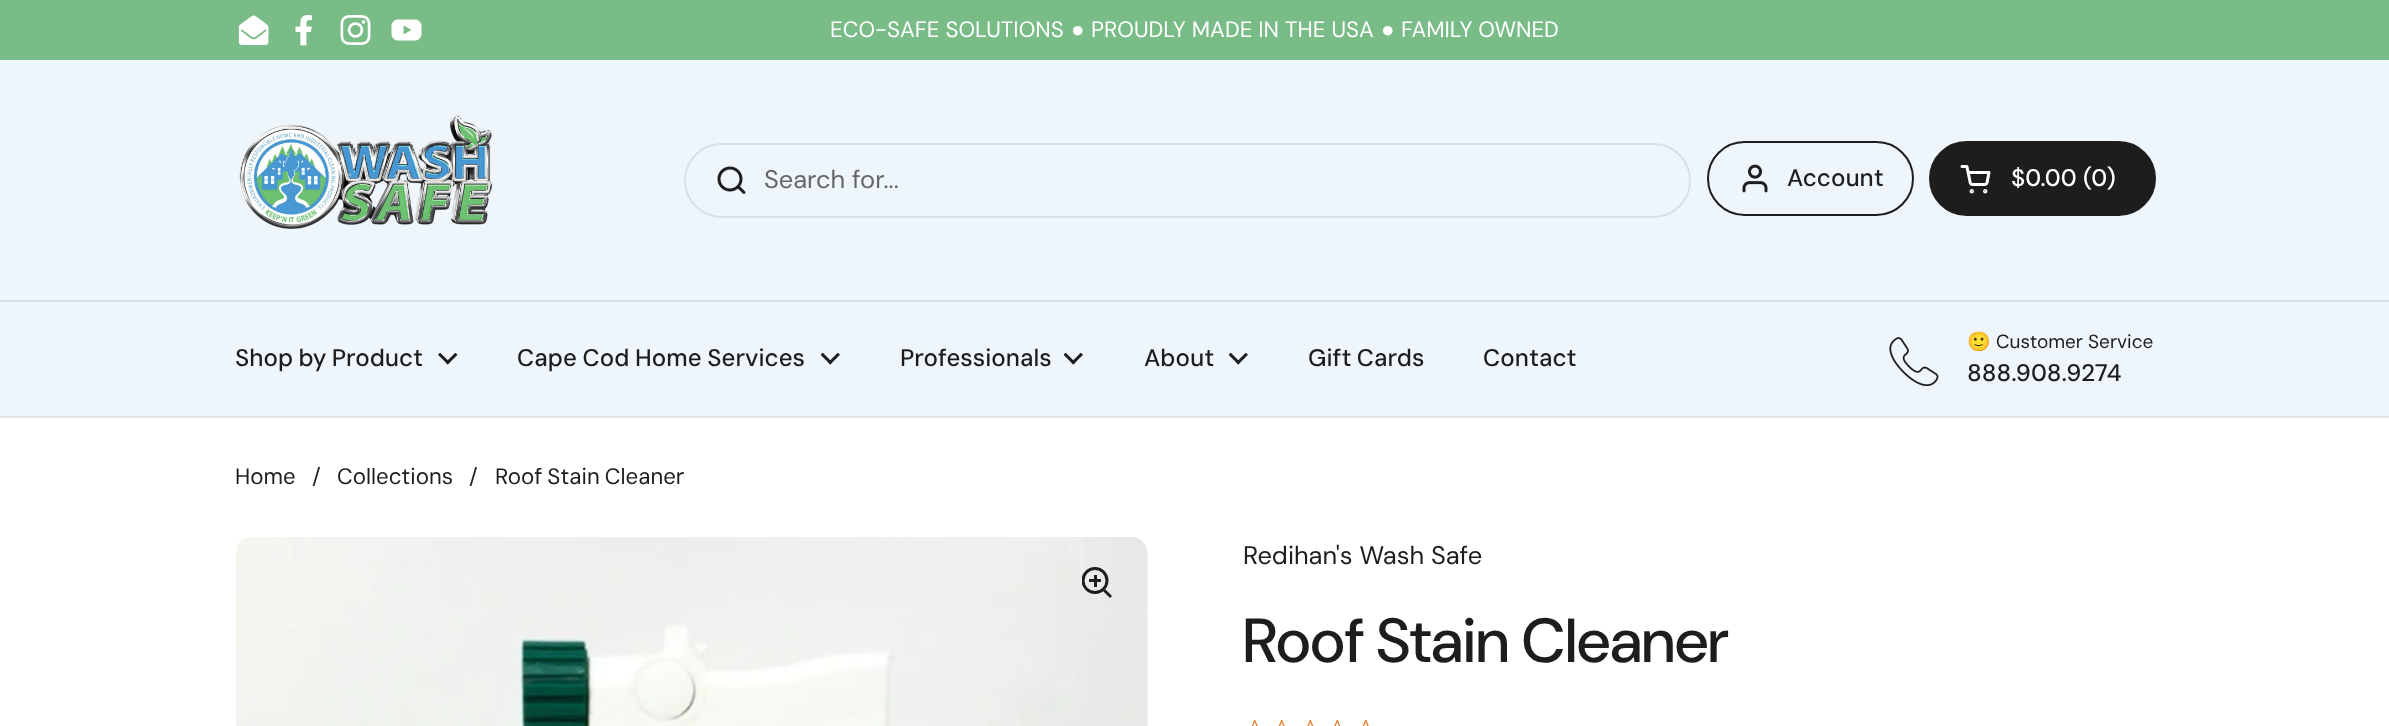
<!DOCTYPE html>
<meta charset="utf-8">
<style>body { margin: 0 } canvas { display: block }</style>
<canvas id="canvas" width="2389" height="726"></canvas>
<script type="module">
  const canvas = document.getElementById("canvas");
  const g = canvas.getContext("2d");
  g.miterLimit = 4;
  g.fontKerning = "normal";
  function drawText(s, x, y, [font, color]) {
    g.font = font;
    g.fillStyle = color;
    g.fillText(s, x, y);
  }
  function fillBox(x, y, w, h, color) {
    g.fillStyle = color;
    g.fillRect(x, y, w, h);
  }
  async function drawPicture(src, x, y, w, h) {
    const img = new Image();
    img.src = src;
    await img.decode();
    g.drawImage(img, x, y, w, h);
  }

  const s1 = ["22.25px DM Sans", "#FFFFFF"];
  const s2 = ["22.25px Liberation Sans", "#FFFFFF"];
  const s3 = ["25.5px 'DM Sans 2'", "#646768"];
  const s4 = ["500 24px 'DM Sans 2'", "#1D1D1D"];
  const s5 = ["500 24px 'DM Sans 2'", "#FFFFFF"];
  const s6 = ["19px Noto Color Emoji", "#1D1D1D"];
  const s7 = ["19px 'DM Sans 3'", "#1D1D1D"];
  const s8 = ["22.25px DM Sans", "#1D1D1D"];
  const s9 = ["25.5px 'DM Sans 2'", "#1D1D1D"];
  const s10 = ["500 62px DM Sans", "#1D1D1D"];

  fillBox(0, 0, 2389, 726, "#FFFFFF");
  fillBox(0, 417, 2389, 1, "#E8E8E8");
  fillBox(0, 0, 2389, 60, "#79BC87");
  await drawPicture("pic1.png", 238, 15, 31, 30);
  await drawPicture("pic2.png", 295, 15, 17, 31);
  await drawPicture("pic3.png", 340, 15, 31, 30);
  await drawPicture("pic4.png", 391, 19, 31, 22);
  drawText("ECO-SAFE SOLUTIONS", 830, 37, s1);
  drawText("●", 1071, 37, s2);
  drawText("PROUDLY MADE IN THE USA", 1091, 37, s1);
  drawText("●", 1381, 37, s2);
  drawText("FAMILY OWNED", 1401, 37, s1);
  fillBox(0, 60, 2389, 356, "#EEF6FB");
  fillBox(0, 416, 2389, 1, "#D9E0E5");
  fillBox(0, 300, 2389, 2, "#D9E0E5");
  await drawPicture("pic5.png", 239, 115, 254, 115);
  g.beginPath();
  g.roundRect(685, 144, 1005, 73, 36.5);
  g.strokeStyle = "#D9E0E5";
  g.lineWidth = 2;
  g.stroke();
  await drawPicture("pic6.png", 717, 166, 29, 28);
  drawText("Search for...", 764, 188, s3);
  g.beginPath();
  g.roundRect(1708, 142, 205, 73, 36.5);
  g.strokeStyle = "#1D1D1D";
  g.stroke();
  await drawPicture("pic7.png", 1742, 164, 26, 29);
  drawText("Account", 1787, 186, s4);
  g.beginPath();
  g.roundRect(1930, 142, 225, 73, 36.5);
  g.fill();
  g.stroke();
  await drawPicture("pic8.png", 1960, 165, 31, 29);
  drawText("$0.00", 2011, 186, s5);
  drawText("(0)", 2083, 186, s5);
  g.wordSpacing = "-1px";
  drawText("Shop by Product", 235, 366, s4);
  await drawPicture("pic9.png", 438, 353, 20, 12);
  g.wordSpacing = "-0.5px";
  drawText("Cape Cod Home Services", 517, 366, s4);
  await drawPicture("pic10.png", 821, 353, 19, 12);
  g.wordSpacing = "0px";
  drawText("Professionals", 900, 366, s4);
  await drawPicture("pic10.png", 1064, 353, 19, 12);
  drawText("About", 1144, 366, s4);
  await drawPicture("pic10.png", 1229, 353, 19, 12);
  g.wordSpacing = "-1px";
  drawText("Gift Cards", 1308, 366, s4);
  g.wordSpacing = "0px";
  drawText("Contact", 1483, 366, s4);
  await drawPicture("pic11.png", 1889, 337, 50, 50);
  drawText("🙂", 1967, 348, s6);
  drawText("Customer Service", 1996, 348, s7);
  drawText("888.908.9274", 1967, 381, s4);
  drawText("Home", 235, 484, s8);
  drawText("/", 312, 484, s8);
  drawText("Collections", 337, 484, s8);
  drawText("/", 469, 484, s8);
  g.wordSpacing = "-1px";
  drawText("Roof Stain Cleaner", 495, 484, s8);
  await drawPicture("pic12.png", 236, 537, 912, 189);
  g.save();
  g.beginPath();
  g.rect(1082, 567, 31, 32);
  g.clip();
  g.beginPath();
  g.arc(1095, 580.5, 12, 0, Math.PI * 2);
  g.lineWidth = 3;
  g.stroke();
  g.restore();
  fillBox(1094, 575, 3, 12, "#1D1D1D");
  fillBox(1089, 579, 12, 3, "#1D1D1D");
  g.beginPath();
  g.moveTo(1103, 591);
  g.lineTo(1105, 589);
  g.lineTo(1112, 596);
  g.lineTo(1110, 598);
  g.closePath();
  g.fill();
  g.wordSpacing = "0px";
  drawText("Redihan's Wash Safe", 1243, 564, s9);
  drawText("Roof Stain Cleaner", 1243, 662, s10);
  await drawPicture("pic13.png", 1251, 720, 7, 6);
  await drawPicture("pic13.png", 1278, 720, 7, 6);
  await drawPicture("pic14.png", 1307, 720, 7, 6);
  await drawPicture("pic14.png", 1334, 720, 7, 6);
  await drawPicture("pic13.png", 1362, 720, 7, 6);
</script>
